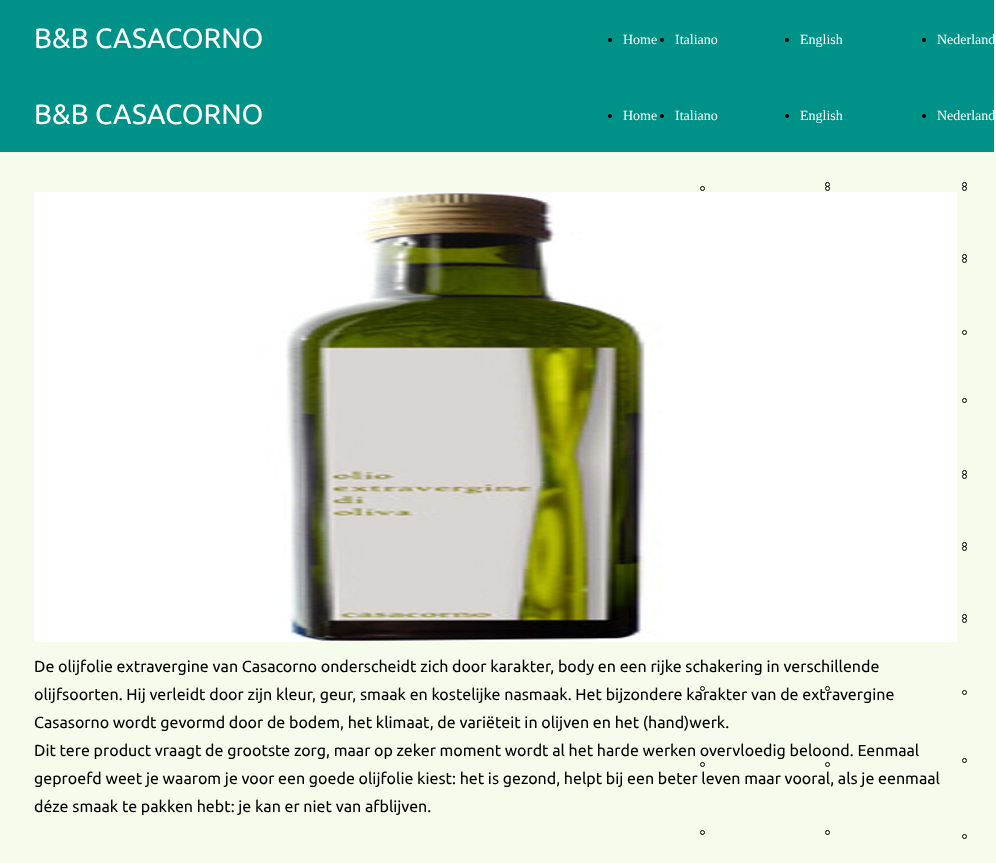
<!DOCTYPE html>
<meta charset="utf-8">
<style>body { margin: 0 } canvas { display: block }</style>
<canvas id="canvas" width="996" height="863"></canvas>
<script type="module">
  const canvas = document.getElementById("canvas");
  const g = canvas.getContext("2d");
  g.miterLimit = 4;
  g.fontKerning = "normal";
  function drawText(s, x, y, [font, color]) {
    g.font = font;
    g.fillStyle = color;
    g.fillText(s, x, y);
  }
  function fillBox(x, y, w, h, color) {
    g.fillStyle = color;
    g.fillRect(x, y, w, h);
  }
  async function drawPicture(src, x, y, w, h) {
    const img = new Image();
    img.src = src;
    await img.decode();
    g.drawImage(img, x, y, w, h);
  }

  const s1 = ["28px Ubuntu", "#FFFFFF"];
  const s2 = ["14px Liberation Serif", "#FFFFFF"];
  const s3 = ["16px Ubuntu", "#000000"];

  fillBox(0, 0, 996, 863, "#F6FCEB");
  fillBox(0, 0, 994, 152, "#009288");
  drawText("B&B CASACORNO", 34, 48, s1);
  g.fillStyle = "#000000";
  g.beginPath();
  g.arc(610, 40, 2, 0, Math.PI * 2);
  g.fill();
  drawText("Home", 623, 44, s2);
  g.fillStyle = "#000000";
  g.beginPath();
  g.arc(662, 40, 2, 0, Math.PI * 2);
  g.fill();
  drawText("Italiano", 675, 44, s2);
  g.beginPath();
  g.arc(702.5, 688.5, 2, 0, Math.PI * 2);
  g.strokeStyle = "#000000";
  g.stroke();
  g.beginPath();
  g.arc(702.5, 832.5, 2, 0, Math.PI * 2);
  g.stroke();
  g.fillStyle = "#000000";
  g.beginPath();
  g.arc(787, 40, 2, 0, Math.PI * 2);
  g.fill();
  drawText("English", 800, 44, s2);
  g.beginPath();
  g.arc(827.5, 184.5, 2, 0, Math.PI * 2);
  g.stroke();
  g.beginPath();
  g.arc(827.5, 688.5, 2, 0, Math.PI * 2);
  g.stroke();
  g.beginPath();
  g.arc(827.5, 832.5, 2, 0, Math.PI * 2);
  g.stroke();
  g.fillStyle = "#000000";
  g.beginPath();
  g.arc(924, 40, 2, 0, Math.PI * 2);
  g.fill();
  drawText("Nederland", 937, 44, s2);
  g.beginPath();
  g.arc(964.5, 184.5, 2, 0, Math.PI * 2);
  g.stroke();
  g.beginPath();
  g.arc(964.5, 256.5, 2, 0, Math.PI * 2);
  g.stroke();
  g.beginPath();
  g.arc(964.5, 400.5, 2, 0, Math.PI * 2);
  g.stroke();
  g.beginPath();
  g.arc(964.5, 472.5, 2, 0, Math.PI * 2);
  g.stroke();
  g.beginPath();
  g.arc(964.5, 544.5, 2, 0, Math.PI * 2);
  g.stroke();
  g.beginPath();
  g.arc(964.5, 616.5, 2, 0, Math.PI * 2);
  g.stroke();
  g.beginPath();
  g.arc(964.5, 760.5, 2, 0, Math.PI * 2);
  g.stroke();
  drawText("B&B CASACORNO", 34, 124, s1);
  g.fillStyle = "#000000";
  g.beginPath();
  g.arc(610, 116, 2, 0, Math.PI * 2);
  g.fill();
  drawText("Home", 623, 120, s2);
  g.fillStyle = "#000000";
  g.beginPath();
  g.arc(662, 116, 2, 0, Math.PI * 2);
  g.fill();
  drawText("Italiano", 675, 120, s2);
  g.beginPath();
  g.arc(702.5, 188.5, 2, 0, Math.PI * 2);
  g.stroke();
  g.beginPath();
  g.arc(702.5, 764.5, 2, 0, Math.PI * 2);
  g.stroke();
  g.fillStyle = "#000000";
  g.beginPath();
  g.arc(787, 116, 2, 0, Math.PI * 2);
  g.fill();
  drawText("English", 800, 120, s2);
  g.beginPath();
  g.arc(827.5, 188.5, 2, 0, Math.PI * 2);
  g.stroke();
  g.beginPath();
  g.arc(827.5, 764.5, 2, 0, Math.PI * 2);
  g.stroke();
  g.fillStyle = "#000000";
  g.beginPath();
  g.arc(924, 116, 2, 0, Math.PI * 2);
  g.fill();
  drawText("Nederland", 937, 120, s2);
  g.beginPath();
  g.arc(964.5, 188.5, 2, 0, Math.PI * 2);
  g.stroke();
  g.beginPath();
  g.arc(964.5, 260.5, 2, 0, Math.PI * 2);
  g.stroke();
  g.beginPath();
  g.arc(964.5, 332.5, 2, 0, Math.PI * 2);
  g.stroke();
  g.beginPath();
  g.arc(964.5, 476.5, 2, 0, Math.PI * 2);
  g.stroke();
  g.beginPath();
  g.arc(964.5, 548.5, 2, 0, Math.PI * 2);
  g.stroke();
  g.beginPath();
  g.arc(964.5, 620.5, 2, 0, Math.PI * 2);
  g.stroke();
  g.beginPath();
  g.arc(964.5, 692.5, 2, 0, Math.PI * 2);
  g.stroke();
  g.beginPath();
  g.arc(964.5, 836.5, 2, 0, Math.PI * 2);
  g.stroke();
  await drawPicture("pic1.png", 34, 192, 923, 450);
  drawText("De olijfolie extravergine van Casacorno onderscheidt zich door karakter, body en een rijke schakering in verschillende", 34, 672, s3);
  drawText("olijfsoorten. Hij verleidt door zijn kleur, geur, smaak en kostelijke nasmaak. Het bijzondere karakter van de extravergine", 34, 700, s3);
  drawText("Casasorno wordt gevormd door de bodem, het klimaat, de variëteit in olijven en het (hand)werk.", 34, 728, s3);
  drawText("Dit tere product vraagt de grootste zorg, maar op zeker moment wordt al het harde werken overvloedig beloond. Eenmaal", 34, 756, s3);
  drawText("geproefd weet je waarom je voor een goede olijfolie kiest: het is gezond, helpt bij een beter leven maar vooral, als je eenmaal", 34, 784, s3);
  drawText("déze smaak te pakken hebt: je kan er niet van afblijven.", 34, 812, s3);
</script>
